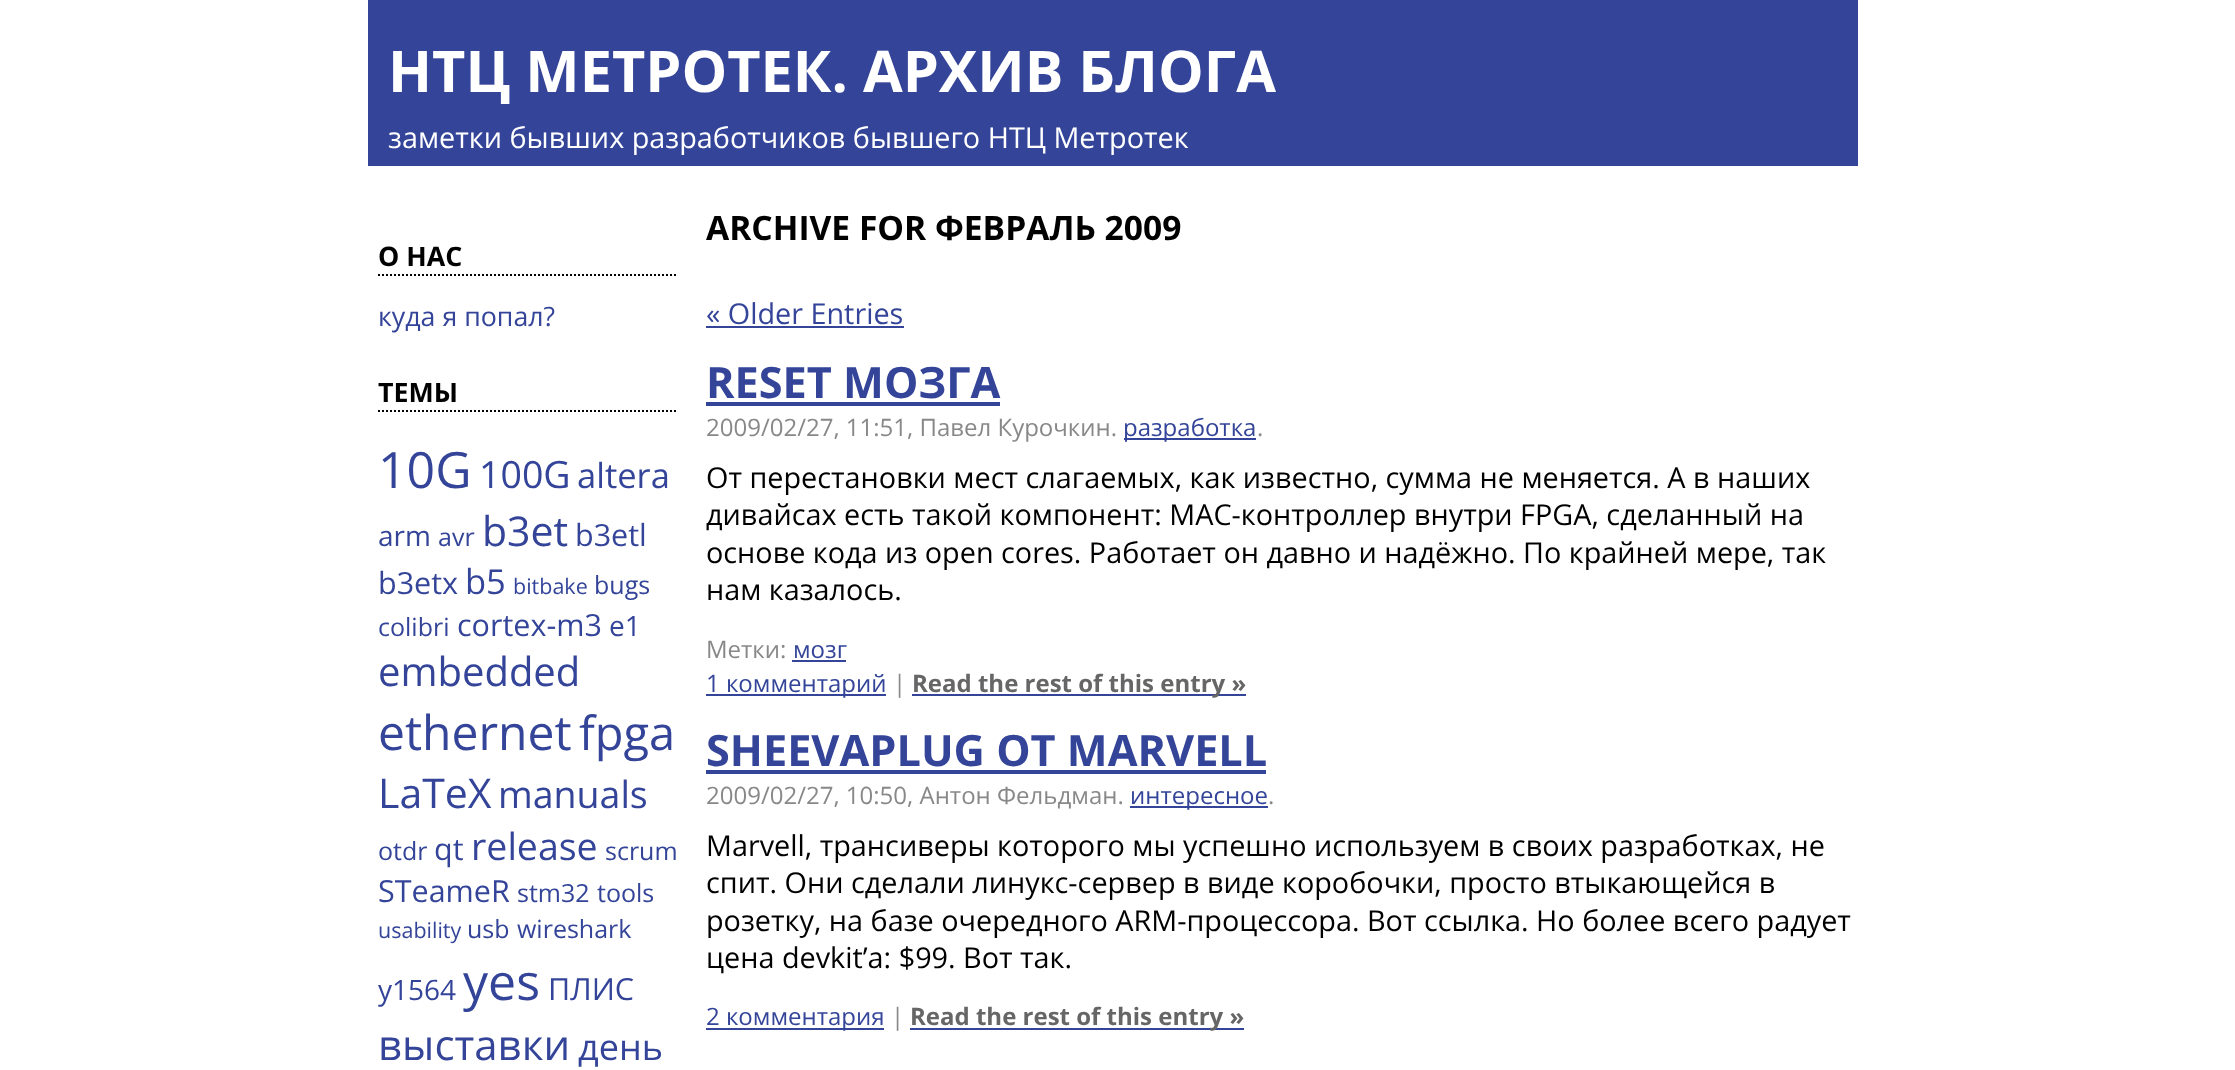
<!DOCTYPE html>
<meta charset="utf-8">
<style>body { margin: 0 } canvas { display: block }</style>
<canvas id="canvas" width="2235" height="1070"></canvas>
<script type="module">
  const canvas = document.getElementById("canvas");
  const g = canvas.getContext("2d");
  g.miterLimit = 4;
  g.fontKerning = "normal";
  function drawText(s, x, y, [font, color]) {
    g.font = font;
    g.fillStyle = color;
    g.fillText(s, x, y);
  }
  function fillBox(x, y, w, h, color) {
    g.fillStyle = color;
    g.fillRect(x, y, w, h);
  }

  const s1 = ["bold 57.6px Open Sans", "#FFFFFF"];
  const s2 = ["28.8px Open Sans", "#FFFFFF"];
  const s3 = ["bold 26.75px Open Sans", "#000000"];
  const s4 = ["26.75px Open Sans", "#334499"];
  const s5 = ["50px Open Sans", "#334499"];
  const s6 = ["37.5px Open Sans", "#334499"];
  const s7 = ["34.5px Open Sans", "#334499"];
  const s8 = ["28px Open Sans", "#334499"];
  const s9 = ["25px Open Sans", "#334499"];
  const s10 = ["41px Open Sans", "#334499"];
  const s11 = ["30.5px Open Sans", "#334499"];
  const s12 = ["21.5px Open Sans", "#334499"];
  const s13 = ["40px Open Sans", "#334499"];
  const s14 = ["48px Open Sans", "#334499"];
  const s15 = ["47px Open Sans", "#334499"];
  const s16 = ["42px Open Sans", "#334499"];
  const s17 = ["36px Open Sans", "#334499"];
  const s18 = ["bold 33.6px Open Sans", "#000000"];
  const s19 = ["28.8px Open Sans", "#334499"];
  const s20 = ["bold 43.25px Open Sans", "#334499"];
  const s21 = ["24px Open Sans", "#888888"];
  const s22 = ["24px Open Sans", "#334499"];
  const s23 = ["28.8px Open Sans", "#000000"];
  const s24 = ["bold 24px Open Sans", "#666666"];

  fillBox(0, 0, 2235, 1070, "#FFFFFF");
  fillBox(368, 0, 1490, 166, "#334499");
  drawText("НТЦ МЕТРОТЕК. АРХИВ БЛОГА", 388, 92, s1);
  drawText("заметки бывших разработчиков бывшего НТЦ Метротек", 388, 148, s2);
  g.beginPath();
  g.moveTo(378, 275);
  g.lineTo(678, 275);
  g.strokeStyle = "#000000";
  g.lineWidth = 2;
  g.setLineDash([2, 2]);
  g.stroke();
  drawText("О НАС", 378, 266, s3);
  drawText("куда я попал?", 378, 326, s4);
  g.beginPath();
  g.moveTo(378, 411);
  g.lineTo(678, 411);
  g.stroke();
  drawText("ТЕМЫ", 378, 402, s3);
  drawText("10G", 378, 488, s5);
  drawText("100G", 479, 488, s6);
  drawText("altera", 577, 488, s7);
  drawText("arm", 378, 546, s8);
  drawText("avr", 438, 546, s9);
  drawText("b3et", 482, 546, s10);
  drawText("b3etl", 575, 546, s11);
  drawText("b3etx", 378, 594, s11);
  drawText("b5", 465, 594, s7);
  drawText("bitbake", 513, 594, s12);
  drawText("bugs", 594, 594, s9);
  drawText("colibri", 378, 636, s9);
  drawText("cortex-m3", 457, 636, s11);
  drawText("e1", 609, 636, s8);
  drawText("embedded", 378, 686, s13);
  drawText("ethernet", 378, 750, s14);
  drawText("fpga", 579, 750, s15);
  drawText("LaTeX", 378, 808, s10);
  drawText("manuals", 498, 808, s6);
  drawText("otdr", 378, 860, s9);
  drawText("qt", 434, 860, s11);
  drawText("release", 471, 860, s6);
  drawText("scrum", 605, 860, s9);
  drawText("STeameR", 378, 902, s11);
  drawText("stm32", 517, 902, s9);
  drawText("tools", 597, 902, s9);
  drawText("usability", 378, 938, s12);
  drawText("usb", 467, 938, s9);
  drawText("wireshark", 517, 938, s9);
  drawText("y1564", 378, 1000, s8);
  drawText("yes", 463, 1000, s5);
  drawText("ПЛИС", 548, 1000, s11);
  drawText("выставки", 378, 1060, s16);
  drawText("день", 578, 1060, s17);
  drawText("ARCHIVE FOR ФЕВРАЛЬ 2009", 706, 240, s18);
  drawText("« Older Entries", 706, 324, s19);
  fillBox(706, 326, 198, 2, "#334499");
  drawText("RESET МОЗГА", 706, 398, s20);
  fillBox(706, 402, 294, 4, "#334499");
  drawText("2009/02/27, 11:51, Павел Курочкин.", 706, 436, s21);
  fillBox(1124, 438, 132, 2, "#334499");
  drawText("разработка", 1123, 436, s22);
  drawText(".", 1257, 436, s21);
  drawText("От перестановки мест слагаемых, как известно, сумма не меняется. А в наших", 706, 488, s23);
  drawText("дивайсах есть такой компонент: MAC-контроллер внутри FPGA, сделанный на", 706, 525, s23);
  drawText("основе кода из open cores. Работает он давно и надёжно. По крайней мере, так", 706, 563, s23);
  drawText("нам казалось.", 706, 600, s23);
  drawText("Метки:", 706, 658, s21);
  drawText("мозг", 793, 658, s22);
  fillBox(792, 660, 54, 2, "#334499");
  fillBox(706, 694, 180, 2, "#334499");
  drawText("1 комментарий", 706, 692, s22);
  drawText("|", 893, 692, s21);
  fillBox(912, 694, 334, 2, "#334499");
  drawText("Read the rest of this entry »", 912, 692, s24);
  drawText("SHEEVAPLUG OT MARVELL", 706, 766, s20);
  fillBox(706, 770, 560, 4, "#334499");
  drawText("2009/02/27, 10:50, Антон Фельдман.", 706, 804, s21);
  fillBox(1130, 806, 138, 2, "#334499");
  drawText("интересное", 1130, 804, s22);
  drawText(".", 1268, 804, s21);
  drawText("Marvell, трансиверы которого мы успешно используем в своих разработках, не", 706, 856, s23);
  drawText("спит. Они сделали линукс-сервер в виде коробочки, просто втыкающейся в", 706, 893, s23);
  drawText("розетку, на базе очередного ARM-процессора. Вот ссылка. Но более всего радует", 706, 931, s23);
  drawText("цена devkit’а: $99. Вот так.", 706, 968, s23);
  fillBox(706, 1028, 178, 2, "#334499");
  drawText("2 комментария", 706, 1025, s22);
  drawText("|", 891, 1025, s21);
  fillBox(910, 1028, 334, 2, "#334499");
  drawText("Read the rest of this entry »", 910, 1025, s24);
</script>
